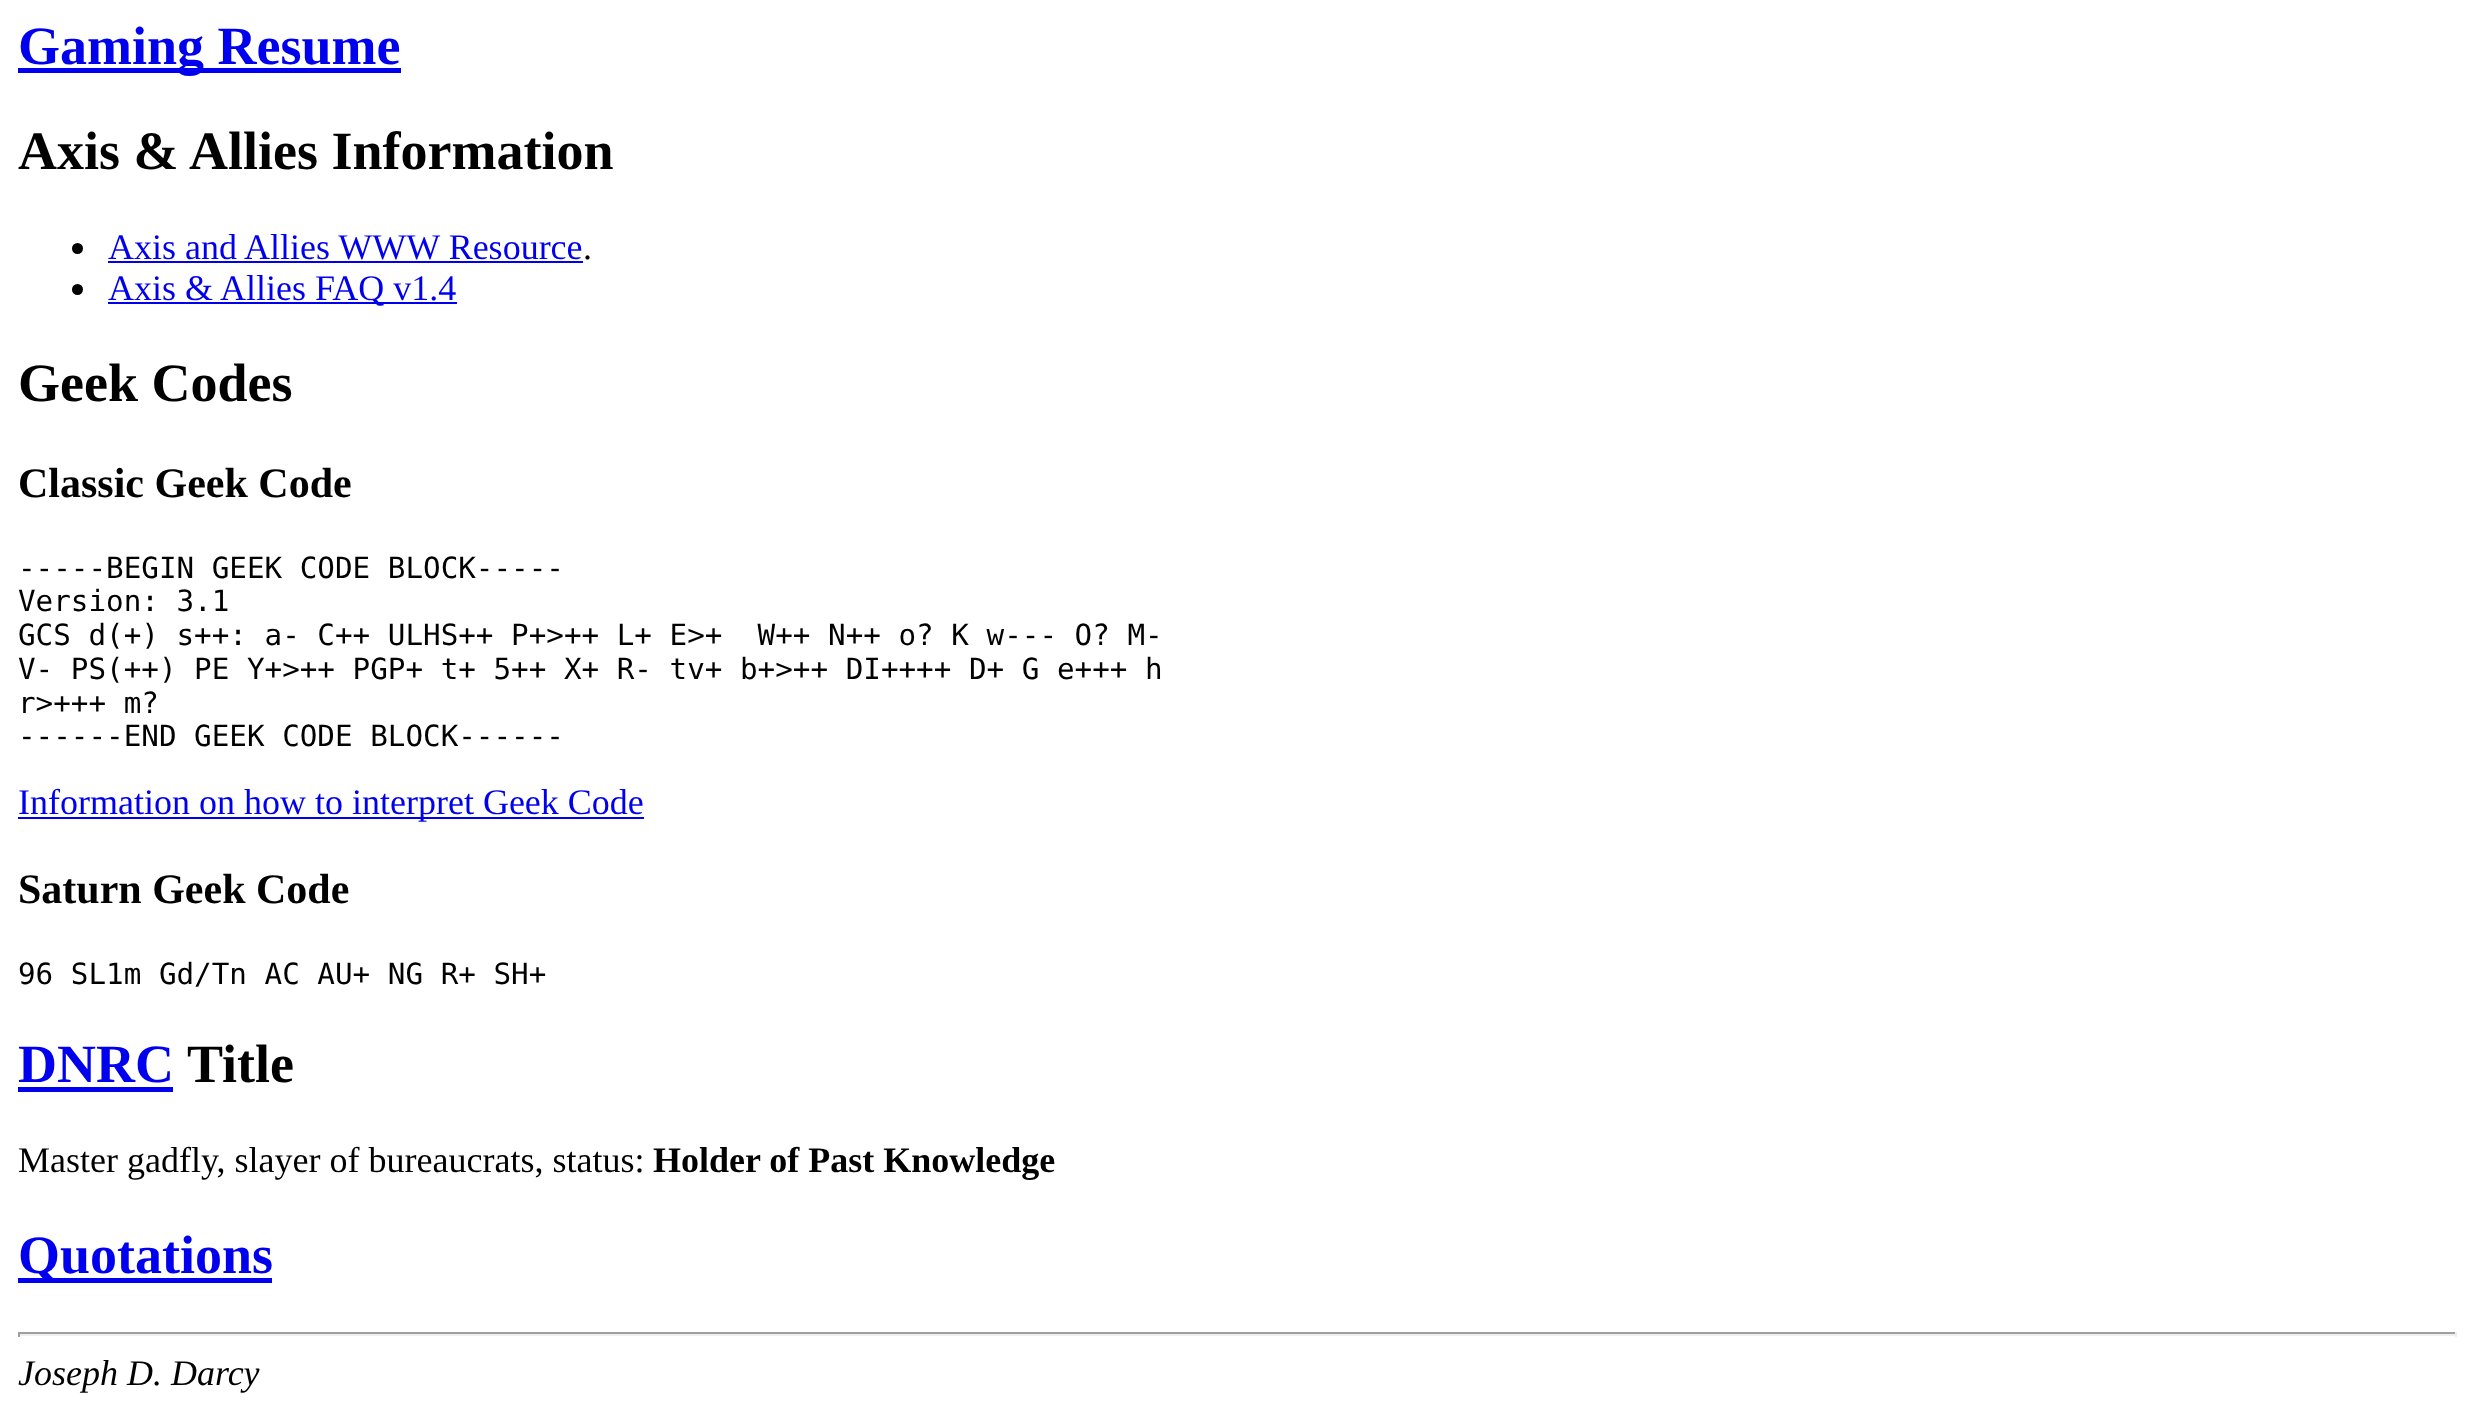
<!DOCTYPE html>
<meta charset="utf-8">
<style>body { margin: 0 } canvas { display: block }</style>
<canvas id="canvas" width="2475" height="1413"></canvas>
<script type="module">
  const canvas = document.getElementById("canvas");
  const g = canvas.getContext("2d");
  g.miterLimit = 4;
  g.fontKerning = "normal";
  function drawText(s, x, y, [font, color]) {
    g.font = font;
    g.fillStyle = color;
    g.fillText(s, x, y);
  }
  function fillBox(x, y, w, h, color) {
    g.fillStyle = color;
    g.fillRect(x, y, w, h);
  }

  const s1 = ["bold 54px Liberation Serif", "#0000EE"];
  const s2 = ["bold 54px Liberation Serif", "#000000"];
  const s3 = ["36px Liberation Serif", "#0000EE"];
  const s4 = ["36px Liberation Serif", "#000000"];
  const s5 = ["bold 42px Liberation Serif", "#000000"];
  const s6 = ["29.25px DejaVu Sans Mono", "#000000"];
  const s7 = ["bold 36px Liberation Serif", "#000000"];
  const s8 = ["italic 36px Liberation Serif", "#000000"];

  fillBox(0, 0, 2475, 1413, "#FFFFFF");
  fillBox(18, 68, 383, 5, "#0000EE");
  drawText("Gaming Resume", 18, 64, s1);
  drawText("Axis & Allies Information", 18, 169, s2);
  g.beginPath();
  g.arc(77.5, 248.5, 5.5, 0, Math.PI * 2);
  g.fill();
  drawText("Axis and Allies WWW Resource", 108, 259, s3);
  fillBox(108, 261, 475, 2, "#0000EE");
  drawText(".", 583, 259, s4);
  g.beginPath();
  g.arc(77.5, 289.5, 5.5, 0, Math.PI * 2);
  g.fill();
  fillBox(108, 302, 349, 2, "#0000EE");
  drawText("Axis & Allies FAQ v1.4", 108, 300, s3);
  drawText("Geek Codes", 18, 401, s2);
  drawText("Classic Geek Code", 18, 497, s5);
  drawText("-----BEGIN GEEK CODE BLOCK-----", 18, 578, s6);
  drawText("Version: 3.1", 18, 611, s6);
  drawText("GCS d(+) s++: a- C++ ULHS++ P+>++ L+ E>+  W++ N++ o? K w--- O? M-", 18, 645, s6);
  drawText("V- PS(++) PE Y+>++ PGP+ t+ 5++ X+ R- tv+ b+>++ DI++++ D+ G e+++ h", 18, 679, s6);
  drawText("r>+++ m?", 18, 713, s6);
  drawText("------END GEEK CODE BLOCK------", 18, 746, s6);
  fillBox(18, 817, 626, 2, "#0000EE");
  drawText("Information on how to interpret Geek Code", 18, 814, s3);
  drawText("Saturn Geek Code", 18, 903, s5);
  drawText("96 SL1m Gd/Tn AC AU+ NG R+ SH+", 18, 984, s6);
  drawText("DNRC", 18, 1082, s1);
  fillBox(18, 1087, 155, 5, "#0000EE");
  drawText("Title", 187, 1082, s2);
  drawText("Master gadfly, slayer of bureaucrats, status:", 18, 1172, s4);
  drawText("Holder of Past Knowledge", 653, 1172, s7);
  fillBox(18, 1278, 254, 5, "#0000EE");
  drawText("Quotations", 18, 1273, s1);
  fillBox(18, 1332, 2439, 2, "#9F9F9F");
  fillBox(2455, 1332, 2, 5, "#EEEEEE");
  fillBox(18, 1334, 2439, 2, "#EEEEEE");
  fillBox(18, 1332, 2, 5, "#9F9F9F");
  drawText("Joseph D. Darcy", 18, 1385, s8);
</script>
